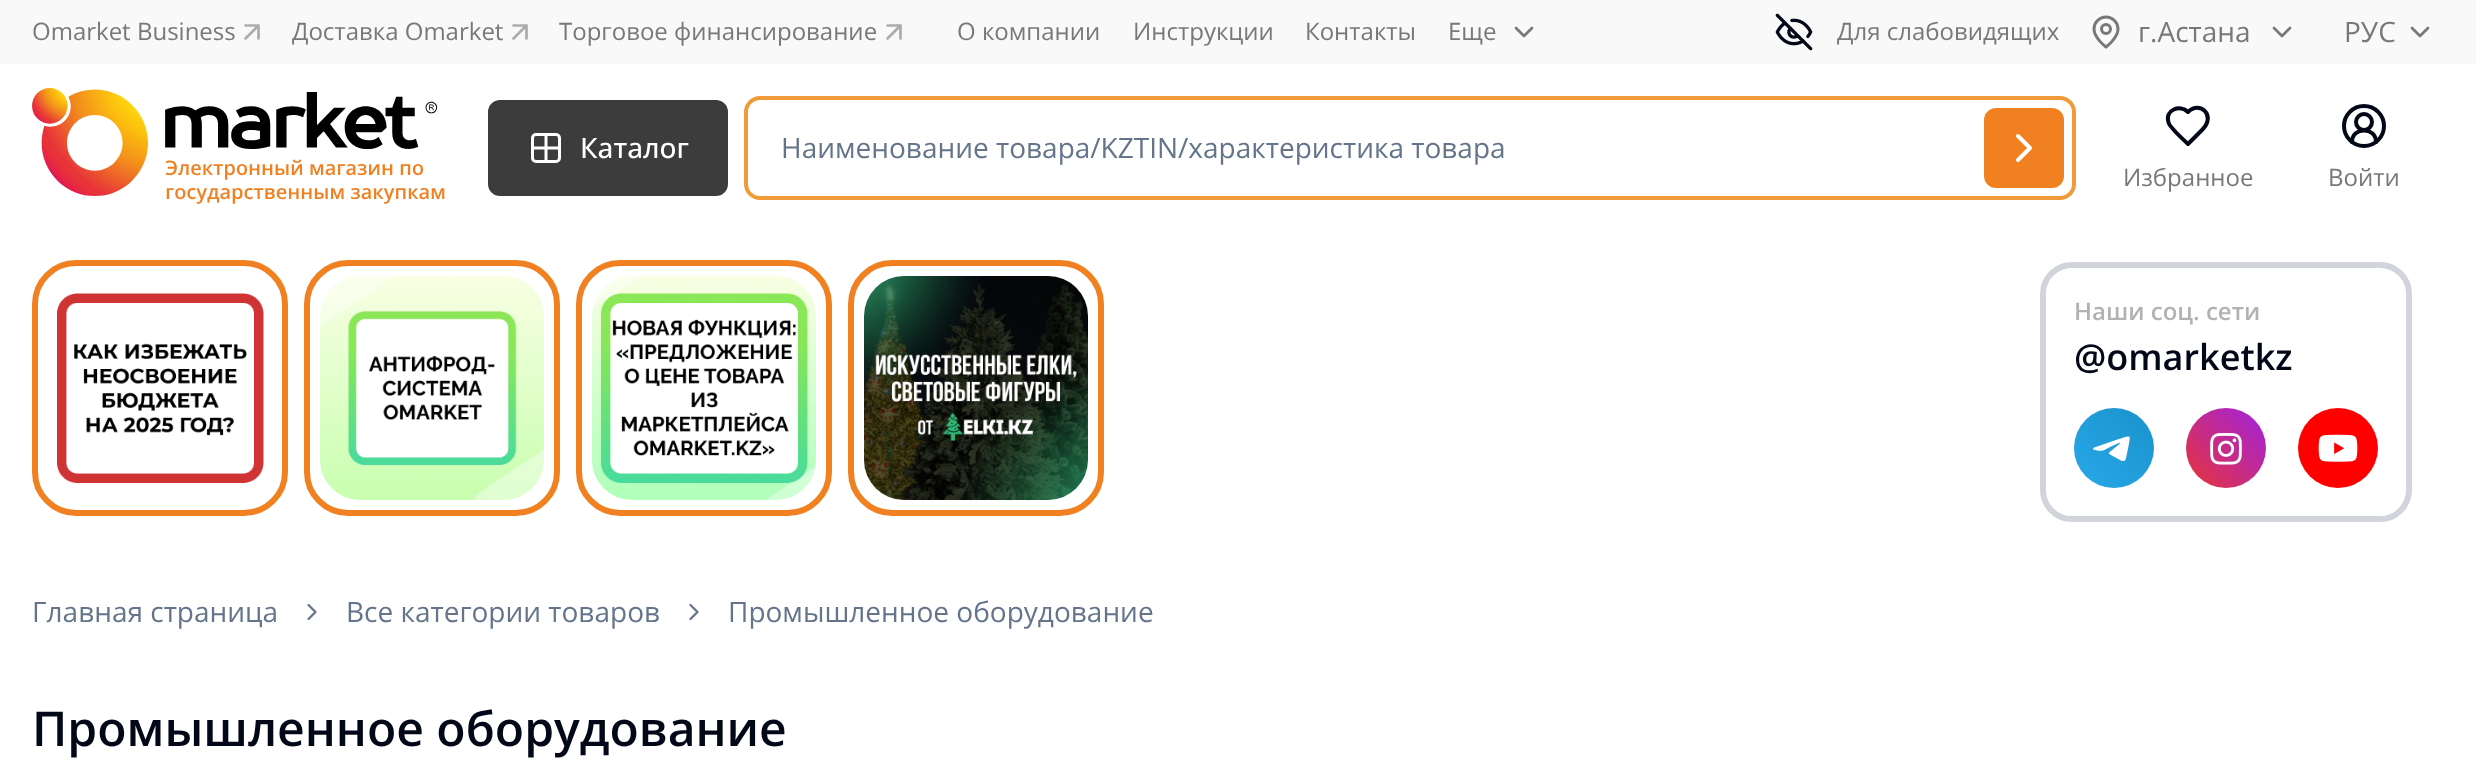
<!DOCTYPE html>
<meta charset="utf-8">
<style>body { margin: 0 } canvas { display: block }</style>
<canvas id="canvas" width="2476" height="772"></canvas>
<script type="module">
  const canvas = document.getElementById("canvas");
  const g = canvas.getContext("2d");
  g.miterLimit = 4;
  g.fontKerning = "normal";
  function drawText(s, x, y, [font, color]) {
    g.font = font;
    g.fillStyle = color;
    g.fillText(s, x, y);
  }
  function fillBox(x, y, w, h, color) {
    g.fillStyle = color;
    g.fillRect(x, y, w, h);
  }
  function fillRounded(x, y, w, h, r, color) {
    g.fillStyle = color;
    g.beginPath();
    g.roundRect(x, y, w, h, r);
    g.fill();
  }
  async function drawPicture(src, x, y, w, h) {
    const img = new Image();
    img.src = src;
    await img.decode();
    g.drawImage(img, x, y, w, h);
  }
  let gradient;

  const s1 = ["24px Open Sans", "#787878"];
  const s2 = ["28px Open Sans", "#787878"];
  const s3 = ["500 28px Open Sans", "#FFFFFF"];
  const s4 = ["28px Open Sans", "#64748B"];
  const s5 = ["600 24px Open Sans", "#B2B2B2"];
  const s6 = ["600 36px Open Sans", "#020817"];
  const s7 = ["600 48px Open Sans", "#020817"];

  fillBox(0, 0, 2476, 772, "#FFFFFF");
  fillBox(0, 0, 2476, 64, "#FAF9F9");
  drawText("Omarket Business", 32, 40, s1);
  g.beginPath();
  g.moveTo(245.5, 25.5);
  g.lineTo(258.5, 25.5);
  g.lineTo(258.5, 38.5);
  g.moveTo(245.5, 38.5);
  g.lineTo(258.5, 25.5);
  g.strokeStyle = "#ACACAC";
  g.lineWidth = 2.7;
  g.lineCap = "round";
  g.lineJoin = "round";
  g.stroke();
  drawText("Доставка Omarket", 292, 40, s1);
  g.beginPath();
  g.moveTo(513.5, 25.5);
  g.lineTo(526.5, 25.5);
  g.lineTo(526.5, 38.5);
  g.moveTo(513.5, 38.5);
  g.lineTo(526.5, 25.5);
  g.stroke();
  drawText("Торговое финансирование", 559, 40, s1);
  g.beginPath();
  g.moveTo(887.5, 25.5);
  g.lineTo(900.5, 25.5);
  g.lineTo(900.5, 38.5);
  g.moveTo(887.5, 38.5);
  g.lineTo(900.5, 25.5);
  g.stroke();
  drawText("О компании", 957, 40, s1);
  drawText("Инструкции", 1133, 40, s1);
  drawText("Контакты", 1305, 40, s1);
  drawText("Еще", 1448, 40, s1);
  g.beginPath();
  g.moveTo(1516, 28);
  g.lineTo(1524, 36);
  g.lineTo(1532, 28);
  g.strokeStyle = "#787878";
  g.stroke();
  await drawPicture("pic1.png", 1775, 13, 38, 38);
  drawText("Для слабовидящих", 1837, 40, s1);
  g.beginPath();
  g.moveTo(2118, 29);
  g.bezierCurveTo(2118, 38, 2106, 47, 2106, 47);
  g.bezierCurveTo(2106, 47, 2094, 38, 2094, 29);
  g.bezierCurveTo(2094, 22.5, 2099.5, 17, 2106, 17);
  g.bezierCurveTo(2112.5, 17, 2118, 22.5, 2118, 29);
  g.closePath();
  g.lineWidth = 3;
  g.stroke();
  g.beginPath();
  g.arc(2106, 29, 4.5, 0, Math.PI * 2);
  g.stroke();
  drawText("г.Астана", 2138, 42, s2);
  g.beginPath();
  g.moveTo(2274, 28);
  g.lineTo(2282, 36);
  g.lineTo(2290, 28);
  g.lineWidth = 2.7;
  g.stroke();
  drawText("РУС", 2344, 42, s2);
  g.beginPath();
  g.moveTo(2412, 28);
  g.lineTo(2420, 36);
  g.lineTo(2428, 28);
  g.stroke();
  await drawPicture("pic2.png", 32, 88, 413, 116);
  fillRounded(488, 100, 240, 96, 12, "#3C3C3C");
  g.beginPath();
  g.roundRect(532.5, 134.5, 27, 27, 3.5);
  g.strokeStyle = "#FFFFFF";
  g.lineWidth = 3;
  g.lineJoin = "miter";
  g.stroke();
  g.beginPath();
  g.moveTo(532.5, 148);
  g.lineTo(559.5, 148);
  g.moveTo(546, 134.5);
  g.lineTo(546, 161.5);
  g.lineJoin = "round";
  g.stroke();
  drawText("Каталог", 580, 158, s3);
  g.beginPath();
  g.roundRect(746, 98, 1328, 100, 14);
  g.strokeStyle = "#F19B38";
  g.lineWidth = 4;
  g.lineJoin = "miter";
  g.stroke();
  drawText("Наименование товара/KZTIN/характеристика товара", 781, 158, s4);
  fillRounded(1984, 108, 80, 80, 12, "#F18021");
  g.beginPath();
  g.moveTo(2018, 160);
  g.lineTo(2030, 148);
  g.lineTo(2018, 136);
  g.strokeStyle = "#FFFFFF";
  g.lineJoin = "round";
  g.stroke();
  g.beginPath();
  g.moveTo(2202, 130);
  g.bezierCurveTo(2217, 115, 2199.5, 100.5, 2188, 112);
  g.bezierCurveTo(2180, 104, 2164.5, 110, 2168.5, 122.5);
  g.bezierCurveTo(2170.5, 128.5, 2183.5, 139.5, 2188, 144);
  g.closePath();
  g.strokeStyle = "#020817";
  g.stroke();
  drawText("Избранное", 2123, 186, s1);
  g.beginPath();
  g.moveTo(2376, 142);
  g.bezierCurveTo(2376, 126.5, 2352, 126.5, 2352, 142);
  g.stroke();
  g.beginPath();
  g.arc(2364, 122, 8, 0, Math.PI * 2);
  g.stroke();
  g.beginPath();
  g.arc(2364, 126, 20, 0, Math.PI * 2);
  g.stroke();
  drawText("Войти", 2328, 186, s1);
  g.beginPath();
  g.roundRect(35, 263, 250, 250, 41);
  g.strokeStyle = "#F18021";
  g.lineWidth = 6;
  g.lineJoin = "miter";
  g.stroke();
  await drawPicture("pic3.png", 57, 293, 207, 190);
  g.beginPath();
  g.roundRect(307, 263, 250, 250, 41);
  g.stroke();
  await drawPicture("pic4.png", 320, 276, 224, 224);
  g.beginPath();
  g.roundRect(579, 263, 250, 250, 41);
  g.stroke();
  await drawPicture("pic5.png", 592, 276, 224, 224);
  g.beginPath();
  g.roundRect(851, 263, 250, 250, 41);
  g.stroke();
  await drawPicture("pic6.png", 864, 276, 224, 224);
  g.beginPath();
  g.roundRect(2043, 265, 366, 254, 29);
  g.strokeStyle = "#D1D5DB";
  g.stroke();
  drawText("Наши соц. сети", 2074, 320, s5);
  drawText("@omarketkz", 2074, 370, s6);
  gradient = g.createLinearGradient(2074, 488, 2154, 408);
  gradient.addColorStop(0, "#28A8E9");
  gradient.addColorStop(1, "#1992CB");
  g.fillStyle = gradient;
  g.beginPath();
  g.arc(2114, 448, 40, 0, Math.PI * 2);
  g.fill();
  await drawPicture("pic7.png", 2092, 436, 38, 25);
  gradient = g.createLinearGradient(2186, 488, 2266, 408);
  gradient.addColorStop(0, "#E73438");
  gradient.addColorStop(1, "#A122E0");
  g.fillStyle = gradient;
  g.beginPath();
  g.arc(2226, 448, 40, 0, Math.PI * 2);
  g.fill();
  await drawPicture("pic8.png", 2210, 433, 32, 32);
  g.fillStyle = "#FF0000";
  g.beginPath();
  g.arc(2338, 448, 40, 0, Math.PI * 2);
  g.fill();
  await drawPicture("pic9.png", 2318, 434, 40, 28);
  drawText("Главная страница", 32, 622, s4);
  g.beginPath();
  g.moveTo(308.5, 619);
  g.lineTo(315.5, 612);
  g.lineTo(308.5, 605);
  g.strokeStyle = "#64748B";
  g.lineWidth = 2.3;
  g.lineJoin = "round";
  g.stroke();
  drawText("Все категории товаров", 346, 622, s4);
  g.beginPath();
  g.moveTo(690.5, 619);
  g.lineTo(697.5, 612);
  g.lineTo(690.5, 605);
  g.stroke();
  drawText("Промышленное оборудование", 728, 622, s4);
  drawText("Промышленное оборудование", 32, 746, s7);
</script>
